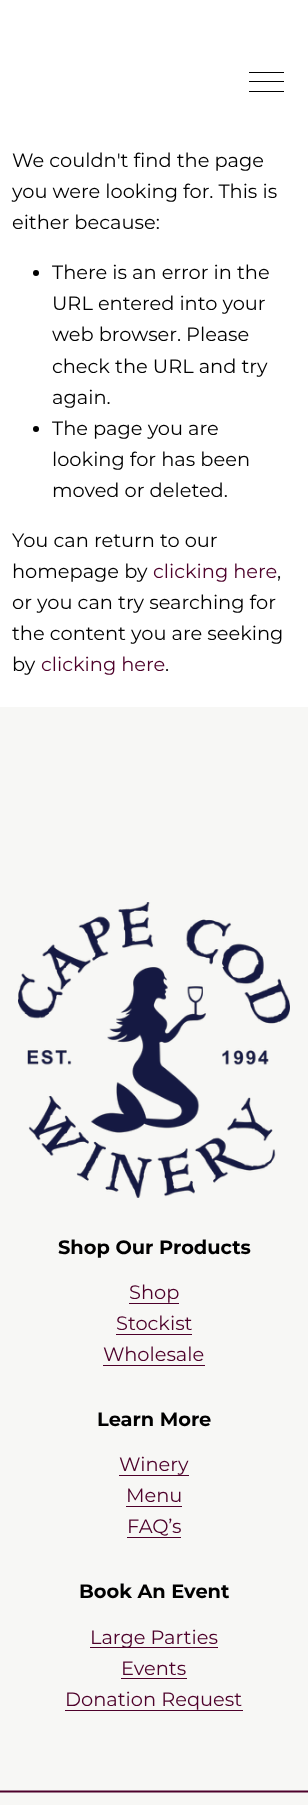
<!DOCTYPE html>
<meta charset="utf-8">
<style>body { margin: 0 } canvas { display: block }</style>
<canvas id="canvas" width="308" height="1805"></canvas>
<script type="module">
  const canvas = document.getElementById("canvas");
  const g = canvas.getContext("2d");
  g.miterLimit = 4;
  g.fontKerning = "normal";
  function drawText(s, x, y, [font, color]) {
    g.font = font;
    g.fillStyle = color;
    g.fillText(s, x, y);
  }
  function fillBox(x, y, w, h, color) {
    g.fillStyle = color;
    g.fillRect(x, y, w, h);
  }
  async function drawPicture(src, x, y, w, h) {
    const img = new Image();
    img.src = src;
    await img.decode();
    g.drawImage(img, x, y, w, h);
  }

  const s1 = ["19.4px Montserrat", "#000000"];
  const s2 = ["19.4px Montserrat", "#4D002A"];
  const s3 = ["bold 19.4px Montserrat", "#000000"];

  fillBox(0, 0, 308, 1805, "#FFFFFF");
  fillBox(249, 72, 35, 1, "#000000");
  fillBox(249, 81, 35, 1, "#000000");
  fillBox(249, 91, 35, 1, "#000000");
  drawText("We couldn't find the page", 12, 167, s1);
  drawText("you were looking for. This is", 12, 198, s1);
  drawText("either because:", 12, 229, s1);
  g.beginPath();
  g.arc(36, 273, 3, 0, Math.PI * 2);
  g.fill();
  drawText("There is an error in the", 52, 279, s1);
  drawText("URL entered into your", 52, 310, s1);
  drawText("web browser. Please", 52, 341, s1);
  drawText("check the URL and try", 52, 373, s1);
  drawText("again.", 52, 404, s1);
  g.beginPath();
  g.arc(36, 429, 3, 0, Math.PI * 2);
  g.fill();
  drawText("The page you are", 52, 435, s1);
  drawText("looking for has been", 52, 466, s1);
  drawText("moved or deleted.", 52, 497, s1);
  drawText("You can return to our", 12, 547, s1);
  drawText("homepage by", 12, 578, s1);
  drawText("clicking here", 153, 578, s2);
  drawText(",", 277, 578, s1);
  drawText("or you can try searching for", 12, 609, s1);
  drawText("the content you are seeking", 12, 640, s1);
  drawText("by", 12, 671, s1);
  drawText("clicking here", 41, 671, s2);
  drawText(".", 165, 671, s1);
  fillBox(0, 707, 308, 1084, "#F7F7F5");
  await drawPicture("pic1.png", 18, 902, 272, 296);
  drawText("Shop Our Products", 58, 1254, s3);
  drawText("Shop", 129, 1299, s2);
  fillBox(129, 1303, 50, 1, "#4D002A");
  drawText("Stockist", 116, 1330, s2);
  fillBox(116, 1334, 76, 1, "#4D002A");
  drawText("Wholesale", 103, 1361, s2);
  fillBox(103, 1365, 102, 1, "#4D002A");
  drawText("Learn More", 97, 1426, s3);
  drawText("Winery", 119, 1471, s2);
  fillBox(119, 1475, 70, 1, "#4D002A");
  drawText("Menu", 126, 1502, s2);
  fillBox(126, 1506, 56, 1, "#4D002A");
  drawText("FAQ’s", 127, 1533, s2);
  fillBox(127, 1537, 54, 1, "#4D002A");
  drawText("Book An Event", 79, 1598, s3);
  fillBox(90, 1647, 128, 1, "#4D002A");
  drawText("Large Parties", 90, 1644, s2);
  drawText("Events", 121, 1675, s2);
  fillBox(121, 1678, 66, 1, "#4D002A");
  drawText("Donation Request", 65, 1706, s2);
  fillBox(65, 1710, 178, 1, "#4D002A");
  fillBox(0, 1792, 308, 13, "#F7F7F5");
  g.beginPath();
  g.moveTo(-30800, 1249.5);
  g.lineTo(-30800, 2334);
  g.moveTo(0, 1791.5);
  g.lineTo(308, 1791.5);
  g.strokeStyle = "#4D002A";
  g.lineWidth = 2;
  g.lineCap = "square";
  g.stroke();
</script>
